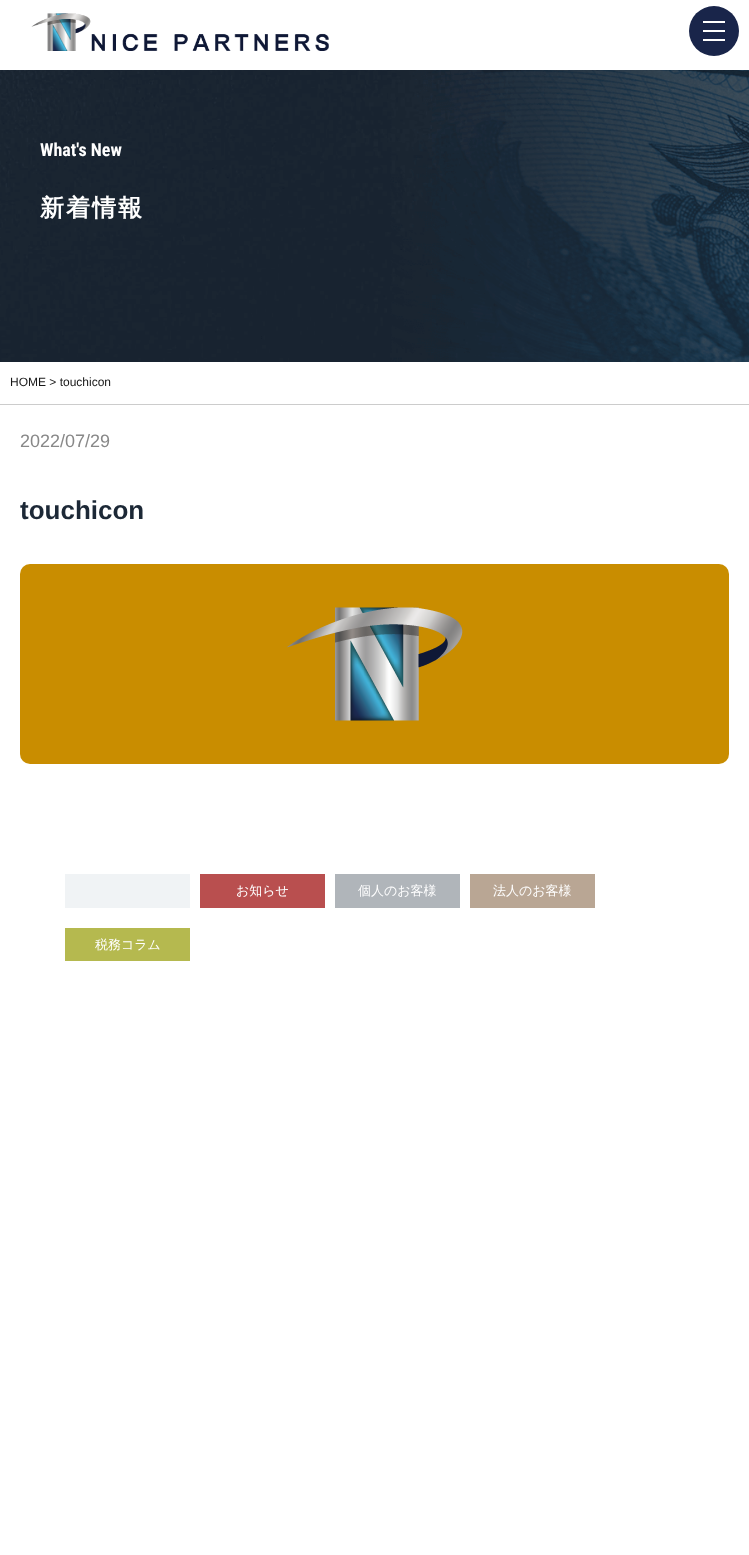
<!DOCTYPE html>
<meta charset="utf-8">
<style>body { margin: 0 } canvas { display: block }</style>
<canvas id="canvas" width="749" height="1555"></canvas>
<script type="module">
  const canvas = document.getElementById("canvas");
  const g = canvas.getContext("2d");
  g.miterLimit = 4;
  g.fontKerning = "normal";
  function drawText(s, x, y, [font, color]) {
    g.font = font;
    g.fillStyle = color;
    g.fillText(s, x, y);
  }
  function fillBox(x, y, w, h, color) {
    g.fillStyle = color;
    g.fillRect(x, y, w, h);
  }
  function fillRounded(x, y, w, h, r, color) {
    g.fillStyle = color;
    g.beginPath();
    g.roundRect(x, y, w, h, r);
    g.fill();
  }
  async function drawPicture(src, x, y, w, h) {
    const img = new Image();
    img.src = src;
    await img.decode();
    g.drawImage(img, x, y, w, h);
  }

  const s1 = ["bold 18px Roboto Condensed", "#FFFFFF"];
  const s2 = ["bold 24px WenQuanYi Zen Hei", "#FFFFFF"];
  const s3 = ["12px Liberation Sans", "#181818"];
  const s4 = ["18px Liberation Sans", "#888888"];
  const s5 = ["bold 26px Liberation Sans", "#1C2836"];
  const s6 = ["500 13px WenQuanYi Zen Hei", "#FFFFFF"];

  fillBox(0, 0, 749, 1555, "#FFFFFF");
  await drawPicture("pic1.png", 31, 13, 298, 38);
  g.fillStyle = "#19254A";
  g.beginPath();
  g.arc(714, 31, 25, 0, Math.PI * 2);
  g.fill();
  fillBox(703, 21, 22, 2, "#FFFFFF");
  fillBox(703, 30, 22, 2, "#FFFFFF");
  fillBox(703, 39, 22, 2, "#FFFFFF");
  await drawPicture("pic2.png", 0, 70, 749, 292);
  drawText("What's New", 40, 156, s1);
  g.letterSpacing = "2px";
  drawText("新着情報", 40, 216, s2);
  fillBox(0, 404, 749, 1, "#CCCCCC");
  g.letterSpacing = "0px";
  drawText("HOME > touchicon", 10, 386, s3);
  drawText("2022/07/29", 20, 447, s4);
  drawText("touchicon", 20, 519, s5);
  fillRounded(20, 564, 709, 200, 10, "#C98D00");
  await drawPicture("pic3.png", 287, 607, 176, 114);
  fillBox(65, 874, 125, 34, "#F0F3F5");
  fillBox(200, 874, 125, 34, "#B94F4F");
  drawText("お知らせ", 236, 895, s6);
  fillBox(335, 874, 125, 34, "#B0B5BA");
  drawText("個人のお客様", 358, 895, s6);
  fillBox(470, 874, 125, 34, "#B9A694");
  drawText("法人のお客様", 493, 895, s6);
  fillBox(65, 928, 125, 33, "#B5B94F");
  drawText("税務コラム", 95, 949, s6);
</script>
